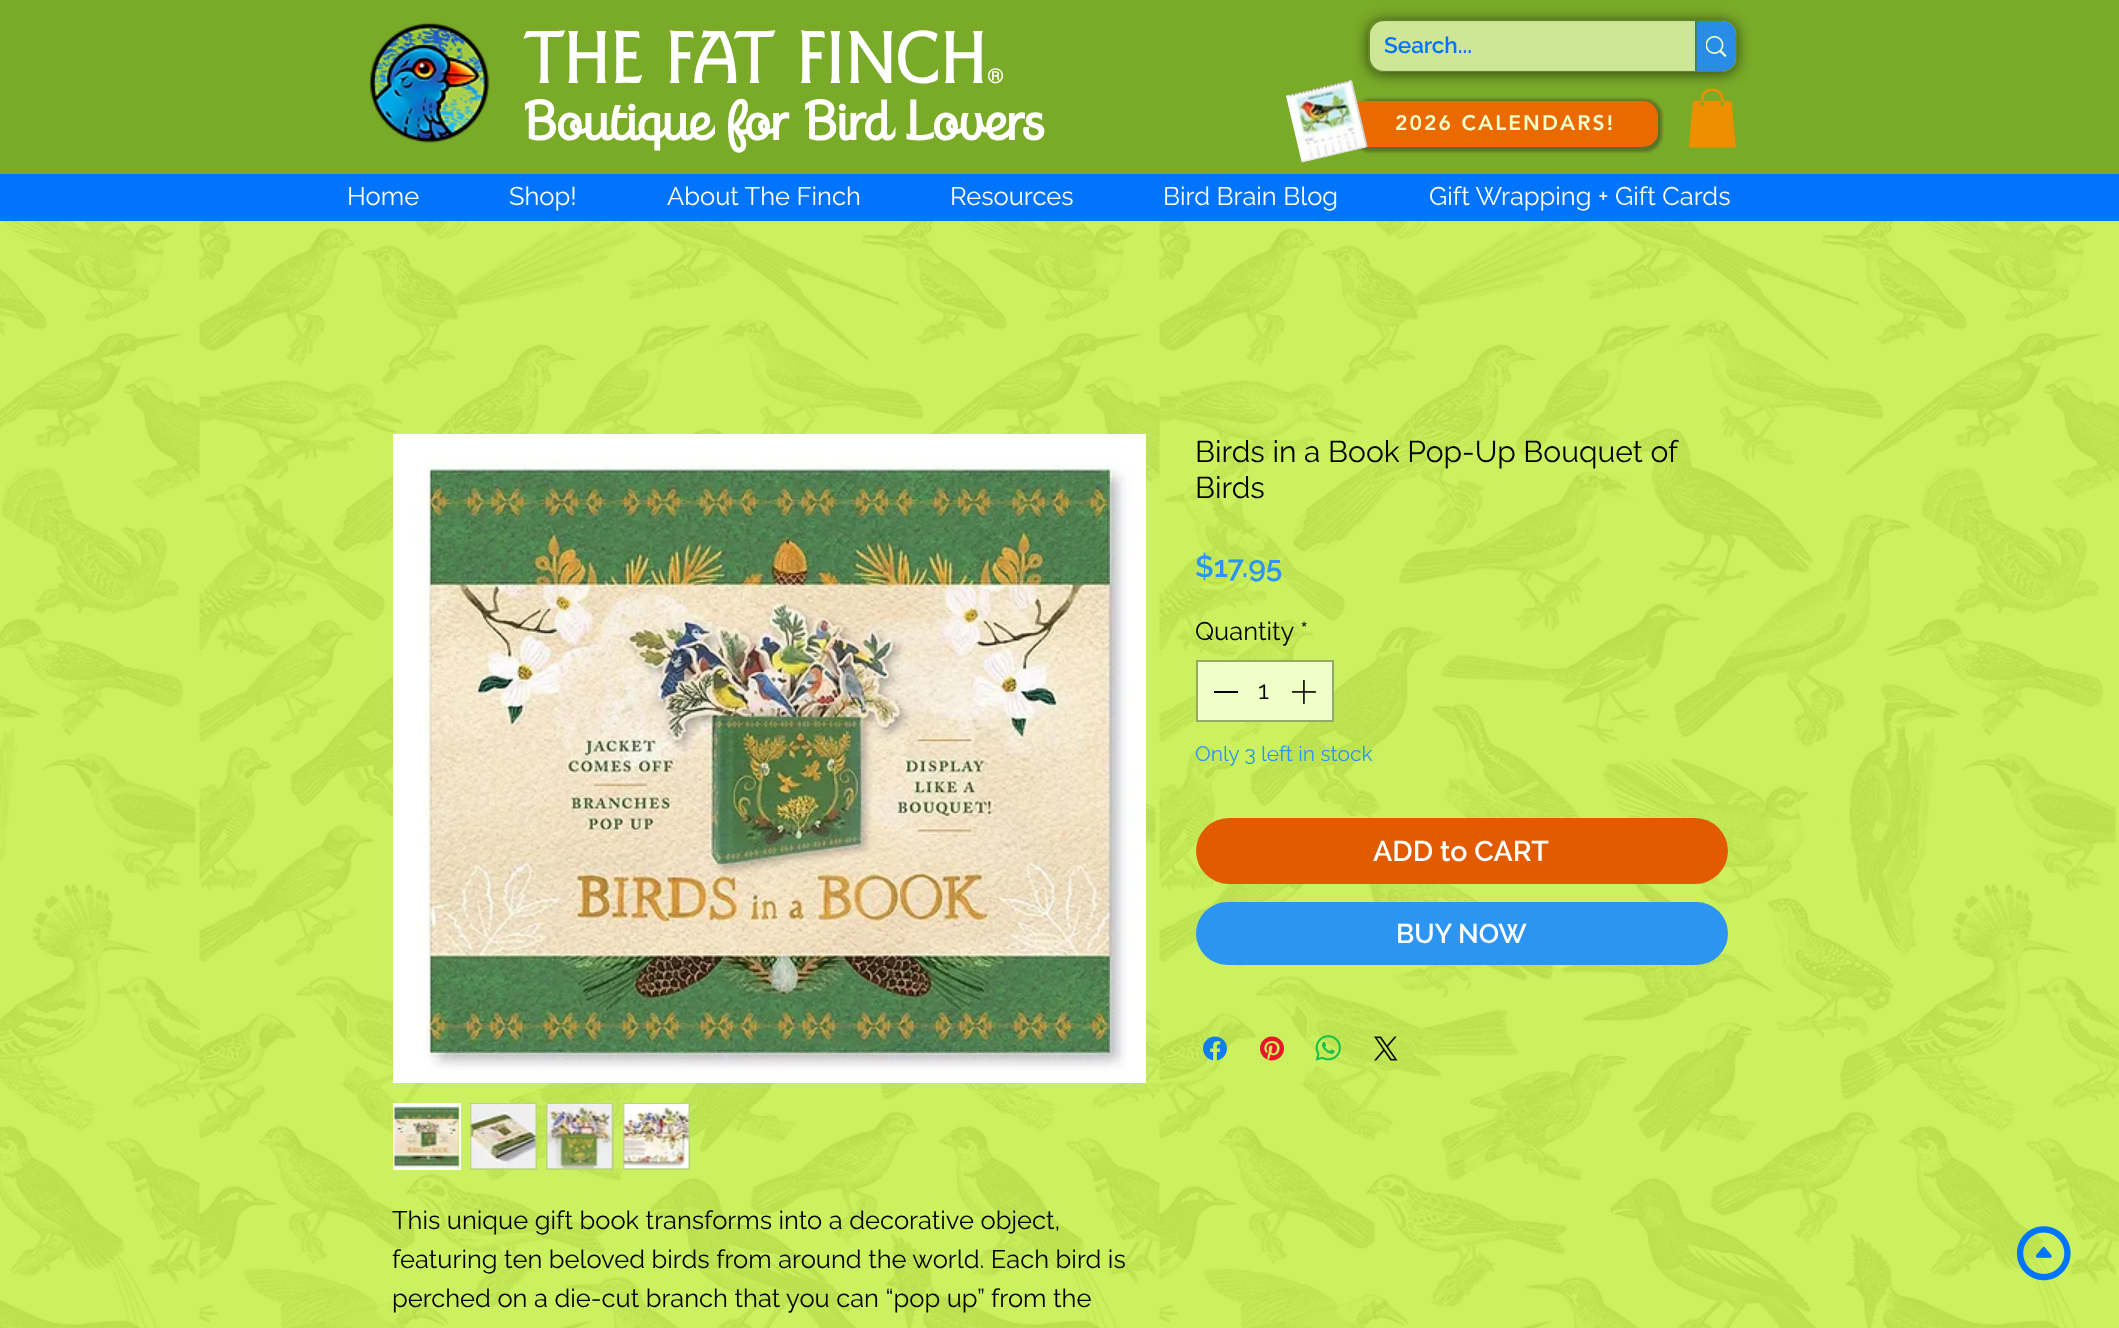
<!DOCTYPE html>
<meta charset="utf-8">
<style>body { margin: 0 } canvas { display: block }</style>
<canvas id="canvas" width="2119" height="1328"></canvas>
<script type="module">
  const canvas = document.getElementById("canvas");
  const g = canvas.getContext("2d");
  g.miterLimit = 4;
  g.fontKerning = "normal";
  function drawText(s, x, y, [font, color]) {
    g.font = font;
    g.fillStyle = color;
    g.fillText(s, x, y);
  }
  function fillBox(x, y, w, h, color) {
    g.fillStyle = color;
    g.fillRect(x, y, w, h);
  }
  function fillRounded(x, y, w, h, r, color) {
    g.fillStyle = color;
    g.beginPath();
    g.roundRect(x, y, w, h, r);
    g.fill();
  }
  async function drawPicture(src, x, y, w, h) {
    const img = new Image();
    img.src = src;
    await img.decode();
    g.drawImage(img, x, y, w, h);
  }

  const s1 = ["bold 75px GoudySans", "#FFFFFF"];
  const s2 = ["bold 21px GoudySans", "#FFFFFF"];
  const s3 = ["bold 54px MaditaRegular", "#FFFFFF"];
  const s4 = ["600 22.5px Raleway", "#0075FB"];
  const s5 = ["900 21px 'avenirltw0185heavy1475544'", "#F0FFC7"];
  const s6 = ["25.5px Raleway", "#FFFFFF"];
  const s7 = ["30px Raleway", "#000000"];
  const s8 = ["600 30px Raleway", "#2C95F2"];
  const s9 = ["25.5px Raleway", "#000000"];
  const s10 = ["21px Raleway", "#2C95F2"];
  const s11 = ["600 28.5px Raleway", "#FFFFFF"];
  const s12 = ["600 27px Raleway", "#FFFFFF"];

  fillBox(0, 0, 2119, 1328, "#C7F054");
  fillBox(0, 0, 2119, 174, "#79AA28");
  await drawPicture("pic1.png", 369, 22, 121, 121);
  drawText("THE FAT FINCH", 524, 83, s1);
  drawText("®", 987, 83, s2);
  drawText("Boutique for Bird Lovers", 524, 140, s3);
  g.save();
  g.beginPath();
  g.moveTo(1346, 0);
  g.lineTo(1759, 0);
  g.lineTo(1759, 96);
  g.lineTo(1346, 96);
  g.closePath();
  g.moveTo(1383, 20);
  g.lineTo(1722, 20);
  g.bezierCurveTo(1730.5, 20, 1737, 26.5, 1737, 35);
  g.lineTo(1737, 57);
  g.bezierCurveTo(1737, 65.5, 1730.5, 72, 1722, 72);
  g.lineTo(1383, 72);
  g.bezierCurveTo(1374.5, 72, 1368, 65.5, 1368, 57);
  g.lineTo(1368, 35);
  g.bezierCurveTo(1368, 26.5, 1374.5, 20, 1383, 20);
  g.closePath();
  g.clip("evenodd");
  g.fillStyle = "rgba(0, 0, 0, 0.6)";
  g.filter = "blur(7px)";
  g.beginPath();
  g.roundRect(1368, 21, 369, 53, 15);
  g.fill();
  g.filter = "none";
  g.restore();
  g.beginPath();
  g.roundRect(1369, 21, 367, 50, 14);
  g.strokeStyle = "rgba(89, 114, 39, 0.6)";
  g.lineWidth = 2;
  g.stroke();
  fillRounded(1370, 21, 366, 50, 14, "rgba(240, 255, 199, 0.71)");
  drawText("Search...", 1384, 53, s4);
  g.fillStyle = "rgba(0, 117, 251, 0.8)";
  g.beginPath();
  g.roundRect(1695, 21, 41, 50, [0, 14, 14, 0]);
  g.fill();
  fillBox(1695, 21, 2, 50, "#467C74");
  await drawPicture("pic2.png", 1706, 36, 21, 21);
  g.fillStyle = "#597227";
  g.filter = "blur(1.5px)";
  g.beginPath();
  g.roundRect(1353, 99, 309, 53, 18);
  g.fill();
  g.filter = "none";
  g.fillStyle = "#EA6900";
  g.beginPath();
  g.roundRect(1355, 101, 303, 46, [0, 15, 15, 0]);
  g.fill();
  await drawPicture("pic3.png", 1286, 80, 82, 83);
  g.letterSpacing = "2.1px";
  drawText("2026 CALENDARS!", 1395, 130, s5);
  await drawPicture("pic4.png", 1688, 88, 48, 60);
  fillBox(0, 174, 2119, 47, "#0075FB");
  g.letterSpacing = "0px";
  drawText("Home", 347, 205, s6);
  drawText("Shop!", 509, 205, s6);
  drawText("About The Finch", 667, 205, s6);
  drawText("Resources", 950, 205, s6);
  drawText("Bird Brain Blog", 1163, 205, s6);
  drawText("Gift Wrapping + Gift Cards", 1429, 205, s6);
  await drawPicture("pic16.png", 0, 221, 2119, 1107);
  drawText("Birds in a Book Pop-Up Bouquet of", 1195, 462, s7);
  drawText("Birds", 1195, 498, s7);
  drawText("$17.95", 1195, 577, s8);
  drawText("Quantity", 1195, 640, s9);
  drawText("*", 1300, 640, s9);
  g.fillStyle = "#F0FFC7";
  g.beginPath();
  g.rect(1197, 661, 136, 60);
  g.fill();
  g.strokeStyle = "#95AA67";
  g.stroke();
  fillBox(1214, 691, 24, 2, "#000000");
  drawText("1", 1258, 699, s9);
  await drawPicture("pic5.png", 1291, 679, 25, 25);
  drawText("Only 3 left in stock", 1195, 761, s10);
  fillRounded(1196, 818, 532, 66, 33, "#E35B00");
  drawText("ADD to CART", 1373, 861, s11);
  fillRounded(1196, 902, 532, 63, 31.5, "#2C95F2");
  drawText("BUY NOW", 1396, 943, s12);
  await drawPicture("pic6.png", 1203, 1036, 24, 25);
  await drawPicture("pic7.png", 1260, 1036, 24, 25);
  await drawPicture("pic8.png", 1315, 1035, 26, 26);
  await drawPicture("pic9.png", 1374, 1036, 24, 25);
  g.strokeStyle = "#FFFFFF";
  g.strokeRect(394, 435, 751, 647);
  await drawPicture("pic10.png", 395, 436, 749, 645);
  fillBox(458, 1105, 1, 63, "#BCD47B");
  g.strokeRect(394, 1104, 66, 65);
  await drawPicture("pic11.png", 394, 1104, 66, 64);
  fillBox(470, 1103, 67, 67, "#BCD47B");
  await drawPicture("pic12.png", 470, 1104, 66, 65);
  fillBox(546, 1103, 68, 67, "#BCD47B");
  await drawPicture("pic13.png", 547, 1104, 66, 65);
  fillBox(623, 1103, 67, 67, "#BCD47B");
  await drawPicture("pic14.png", 623, 1104, 66, 65);
  drawText("This unique gift book transforms into a decorative object,", 392, 1229, s9);
  drawText("featuring ten beloved birds from around the world. Each bird is", 392, 1268, s9);
  drawText("perched on a die-cut branch that you can “pop up” from the", 392, 1307, s9);
  await drawPicture("pic15.png", 2016, 1226, 55, 55);
</script>
